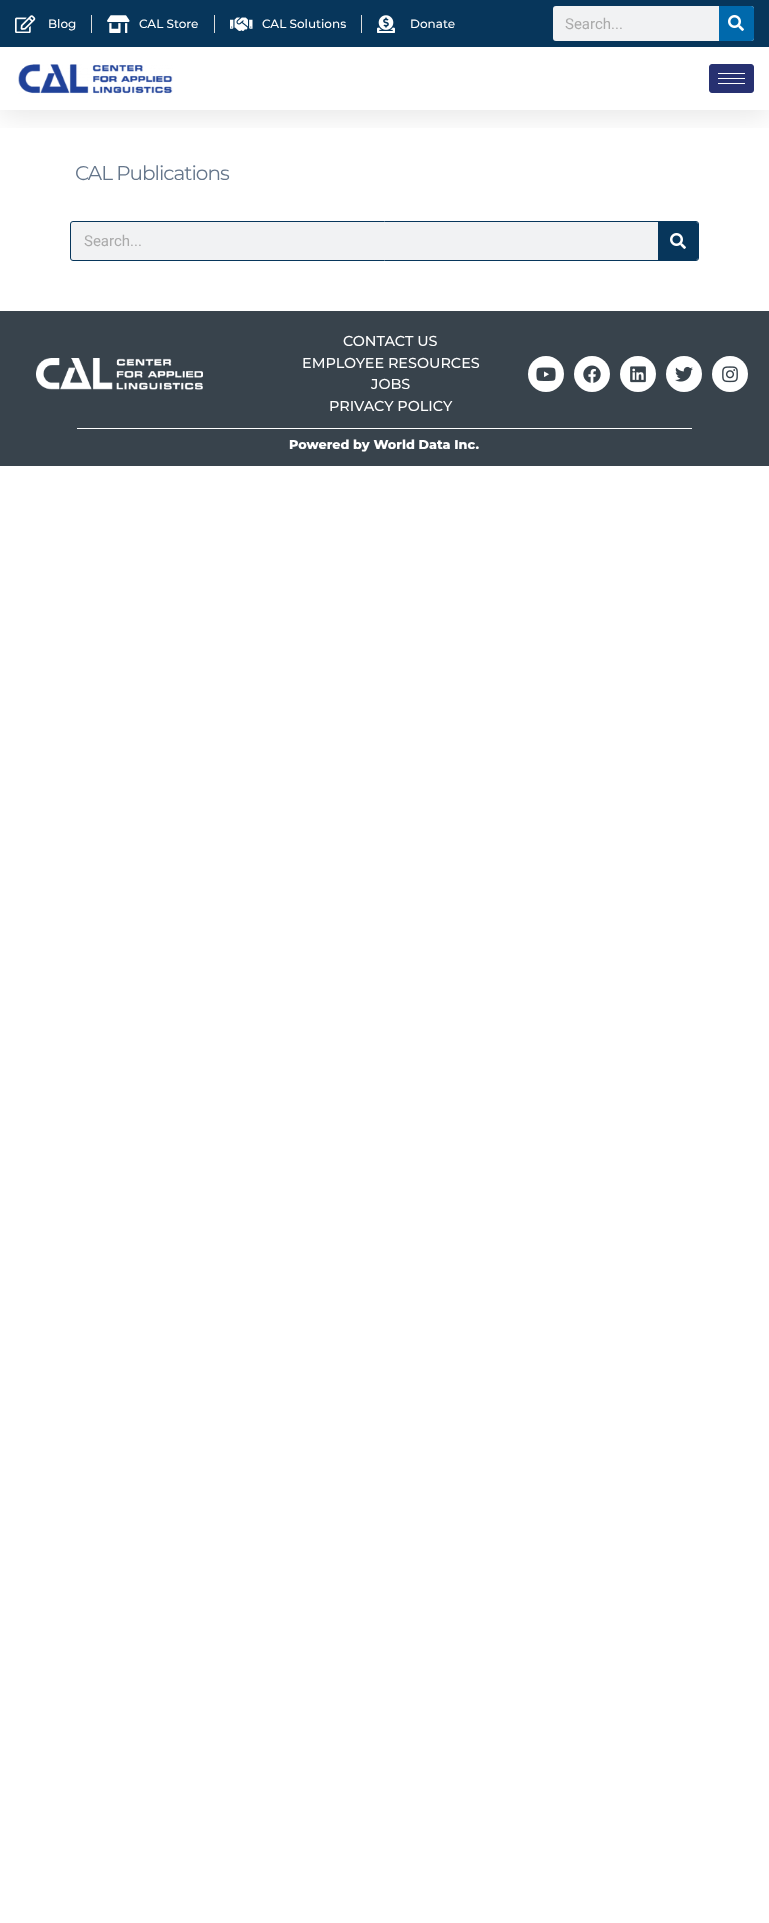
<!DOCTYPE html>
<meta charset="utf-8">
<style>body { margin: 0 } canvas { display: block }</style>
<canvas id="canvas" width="769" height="1923"></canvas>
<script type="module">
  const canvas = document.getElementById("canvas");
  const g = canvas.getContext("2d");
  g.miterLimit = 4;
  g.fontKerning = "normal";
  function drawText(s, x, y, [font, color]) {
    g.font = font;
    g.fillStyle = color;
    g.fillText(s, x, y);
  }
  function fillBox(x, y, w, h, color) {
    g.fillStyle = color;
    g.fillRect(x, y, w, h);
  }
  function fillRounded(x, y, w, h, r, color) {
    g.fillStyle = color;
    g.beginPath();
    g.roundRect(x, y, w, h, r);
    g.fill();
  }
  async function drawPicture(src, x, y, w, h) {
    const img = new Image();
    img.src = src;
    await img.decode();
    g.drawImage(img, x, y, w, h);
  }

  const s1 = ["500 12px Montserrat", "#FFFFFF"];
  const s2 = ["15px Roboto", "#AAAAAA"];
  const s3 = ["20px Montserrat", "#65768B"];
  const s4 = ["500 14.4px Montserrat", "#FFFFFF"];
  const s5 = ["800 12.75px Montserrat", "#FFFFFF"];

  fillBox(0, 0, 769, 1923, "#FFFFFF");
  g.save();
  g.beginPath();
  g.rect(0, 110, 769, 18);
  g.clip();
  g.fillStyle = "rgba(0, 0, 0, 0.1)";
  g.filter = "blur(15px)";
  g.beginPath();
  g.rect(0, 5, 769, 110);
  g.fill();
  g.filter = "none";
  g.restore();
  fillBox(0, 0, 769, 47, "#07365B");
  await drawPicture("pic1.png", 15, 15, 21, 18);
  drawText("Blog", 48, 28, s1);
  fillBox(91, 15, 1, 18, "#DDDDDD");
  await drawPicture("pic2.png", 107, 15, 23, 18);
  drawText("CAL Store", 139, 28, s1);
  fillBox(214, 15, 1, 18, "#DDDDDD");
  await drawPicture("pic3.png", 230, 17, 23, 14);
  drawText("CAL Solutions", 262, 28, s1);
  fillBox(361, 15, 1, 18, "#DDDDDD");
  await drawPicture("pic4.png", 377, 15, 18, 18);
  drawText("Donate", 410, 28, s1);
  fillRounded(553, 6, 201, 35, 3, "#F1F2F3");
  drawText("Search...", 565, 29, s2);
  g.fillStyle = "#0069AC";
  g.beginPath();
  g.roundRect(719, 6, 35, 35, [0, 3, 3, 0]);
  g.fill();
  await drawPicture("pic5.png", 728, 15, 16, 16);
  await drawPicture("pic6.png", 18, 64, 155, 30);
  g.fillStyle = "#273171";
  g.beginPath();
  g.roundRect(709.5, 64.5, 44, 28, 2.5);
  g.fill();
  g.strokeStyle = "#273171";
  g.stroke();
  fillBox(718, 73, 27, 1, "#FFFFFF");
  fillBox(718, 78, 27, 1, "#FFFFFF");
  fillBox(718, 83, 27, 1, "#FFFFFF");
  g.letterSpacing = "-1px";
  drawText("CAL Publications", 75, 180, s3);
  g.fillStyle = "#F1F2F3";
  g.beginPath();
  g.roundRect(70.5, 221.5, 628, 39, 2.5);
  g.fill();
  g.strokeStyle = "#07365B";
  g.stroke();
  g.letterSpacing = "0px";
  drawText("Search...", 84, 246, s2);
  g.fillStyle = "#07365B";
  g.beginPath();
  g.roundRect(658, 222, 40, 38, [0, 2, 2, 0]);
  g.fill();
  await drawPicture("pic7.png", 670, 233, 16, 16);
  fillBox(0, 311, 769, 155, "#38434C");
  await drawPicture("pic8.png", 36, 358, 167, 32);
  drawText("CONTACT US", 343, 346, s4);
  drawText("EMPLOYEE RESOURCES", 302, 368, s4);
  drawText("JOBS", 371, 389, s4);
  drawText("PRIVACY POLICY", 329, 411, s4);
  g.beginPath();
  g.arc(546, 374, 18, 0, Math.PI * 2);
  g.fill();
  await drawPicture("pic9.png", 536, 367, 20, 14);
  g.beginPath();
  g.arc(592, 374, 18, 0, Math.PI * 2);
  g.fill();
  await drawPicture("pic10.png", 583, 365, 18, 18);
  g.beginPath();
  g.arc(638, 374, 18, 0, Math.PI * 2);
  g.fill();
  await drawPicture("pic11.png", 630, 366, 16, 17);
  g.beginPath();
  g.arc(684, 374, 18, 0, Math.PI * 2);
  g.fill();
  await drawPicture("pic12.png", 675, 366, 18, 16);
  g.beginPath();
  g.arc(730, 374, 18, 0, Math.PI * 2);
  g.fill();
  await drawPicture("pic13.png", 722, 366, 16, 17);
  fillBox(77, 428, 615, 1, "#FFFFFF");
  drawText("Powered by World Data Inc.", 289, 449, s5);
</script>
